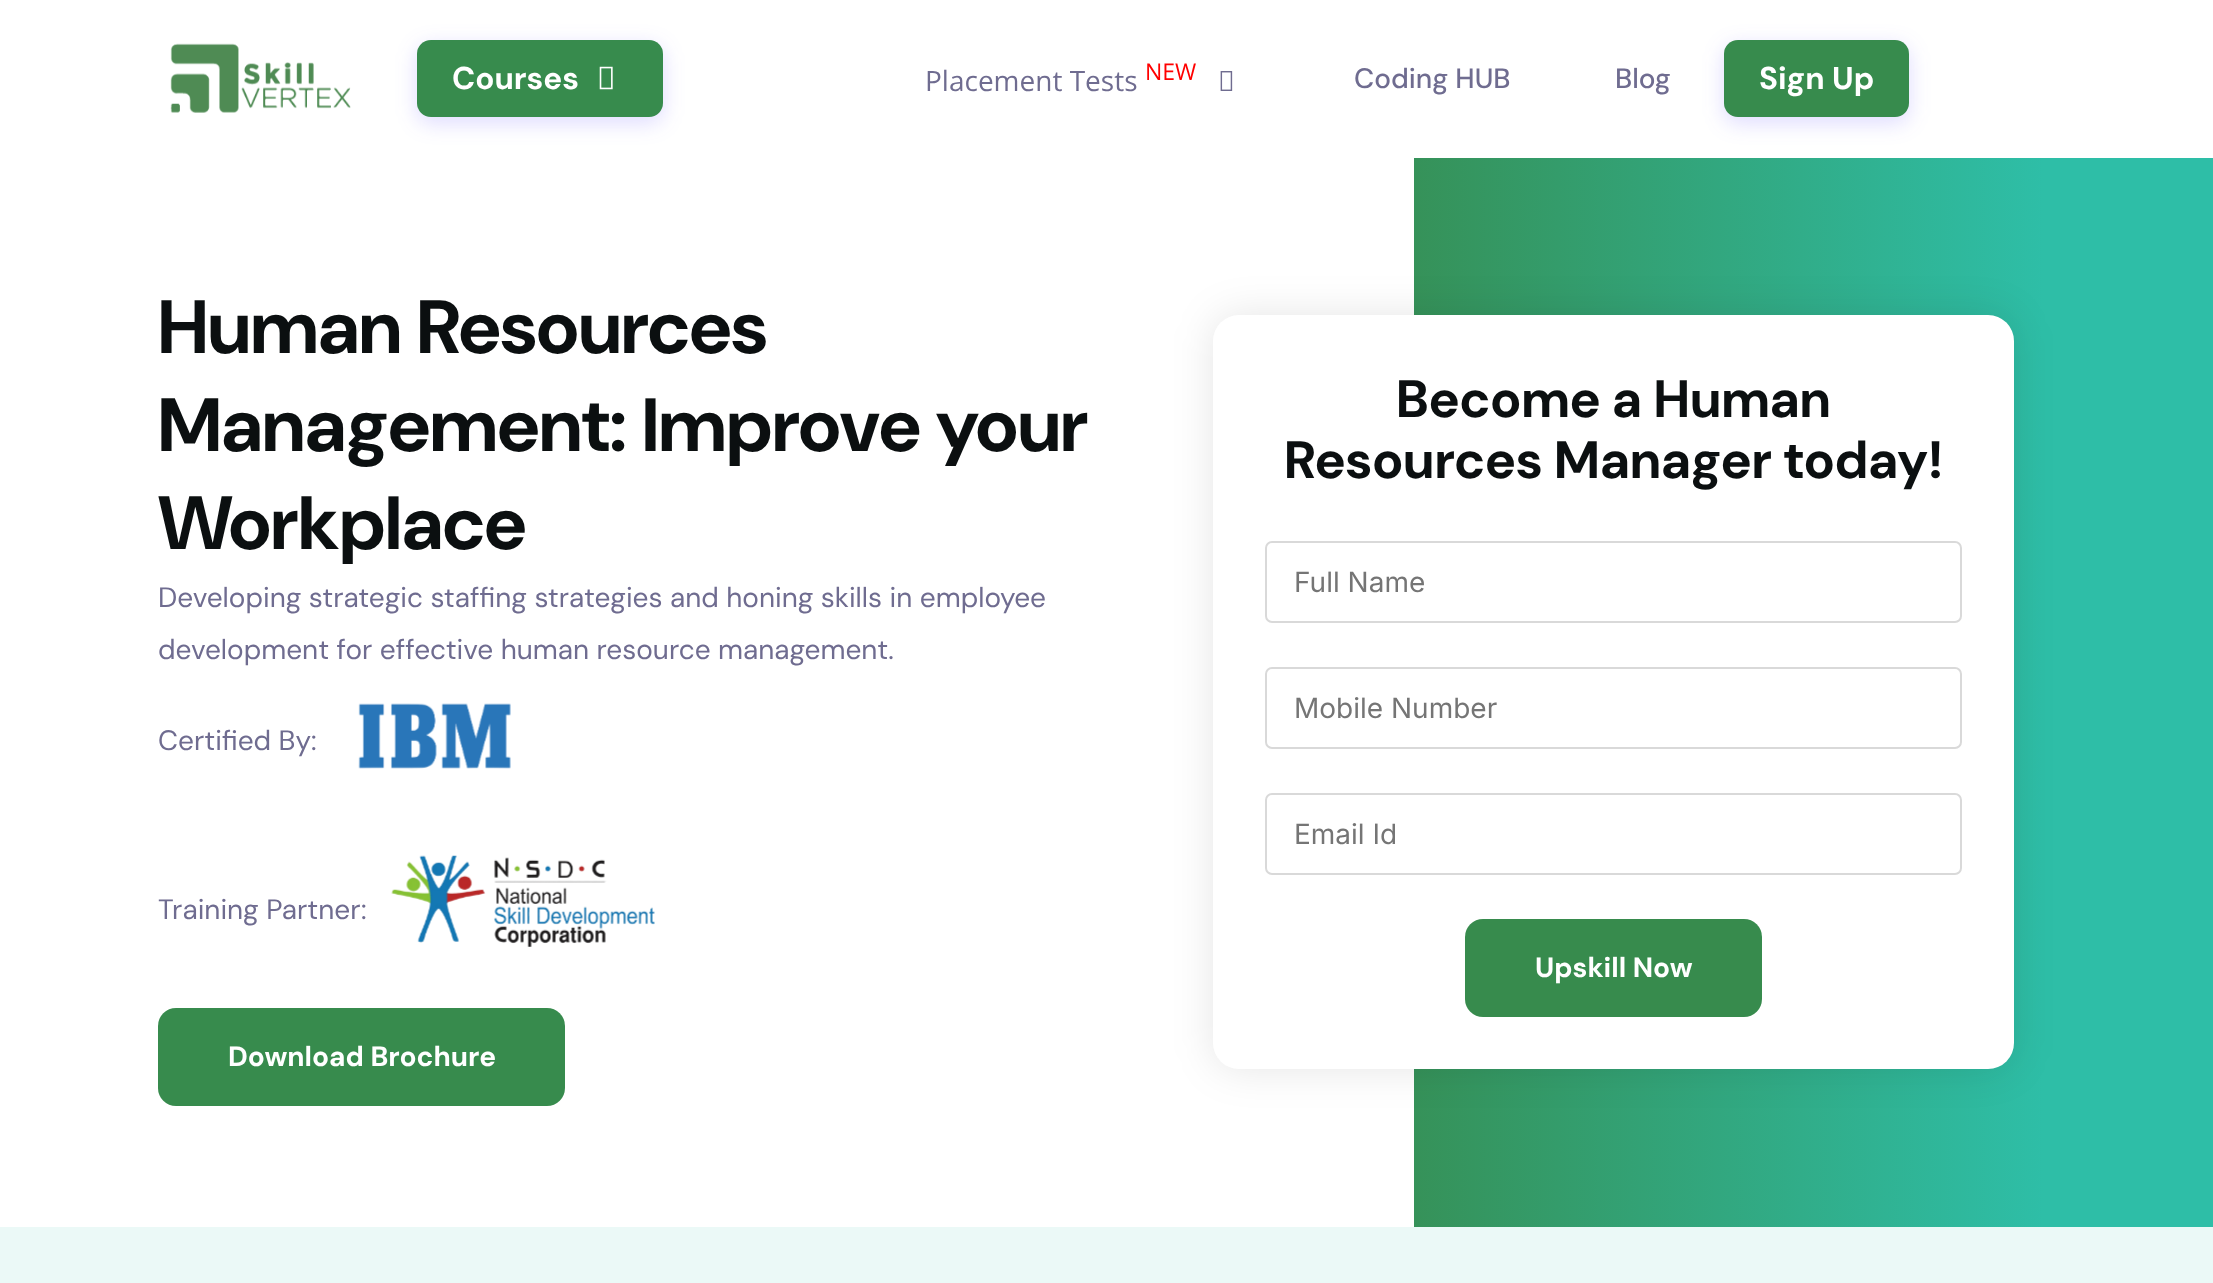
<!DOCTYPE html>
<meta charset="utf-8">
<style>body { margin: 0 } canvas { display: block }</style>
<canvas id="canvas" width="2213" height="1283"></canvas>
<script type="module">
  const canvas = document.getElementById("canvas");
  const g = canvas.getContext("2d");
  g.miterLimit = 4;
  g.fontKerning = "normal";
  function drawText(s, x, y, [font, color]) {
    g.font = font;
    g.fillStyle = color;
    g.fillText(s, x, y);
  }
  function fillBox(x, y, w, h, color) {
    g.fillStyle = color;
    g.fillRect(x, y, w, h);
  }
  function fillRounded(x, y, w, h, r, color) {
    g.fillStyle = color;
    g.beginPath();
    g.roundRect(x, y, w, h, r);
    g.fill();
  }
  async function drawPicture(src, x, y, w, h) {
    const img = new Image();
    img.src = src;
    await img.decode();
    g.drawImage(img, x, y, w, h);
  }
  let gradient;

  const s1 = ["bold 31.5px 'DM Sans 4'", "#FFFFFF"];
  const s2 = ["28px Open Sans", "#6F6C90"];
  const s3 = ["23px Open Sans", "#FF0000"];
  const s4 = ["500 28px DM Sans", "#6F6C90"];
  const s5 = ["bold 75.25px DM Sans", "#0B0F10"];
  const s6 = ["28px DM Sans", "#6F6C90"];
  const s7 = ["bold 28px 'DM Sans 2'", "#FFFFFF"];
  const s8 = ["bold 52.5px 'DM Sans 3'", "#0B0F10"];
  const s9 = ["28px Inter", "#757575"];

  fillBox(0, 0, 2213, 1283, "#FFFFFF");
  await drawPicture("pic1.png", 170, 43, 181, 70);
  g.fillStyle = "rgba(74, 58, 255, 0.18)";
  g.filter = "blur(10.5px)";
  g.beginPath();
  g.roundRect(417, 46, 246, 77, 14);
  g.fill();
  g.filter = "none";
  fillRounded(417, 40, 246, 77, 14, "#378B4D");
  drawText("Courses", 452, 89, s1);
  await drawPicture("pic2.png", 599, 66, 14, 24);
  drawText("Placement Tests", 925, 91, s2);
  drawText("NEW", 1145, 80, s3);
  await drawPicture("pic3.png", 1220, 71, 13, 20);
  drawText("Coding HUB", 1354, 88, s4);
  drawText("Blog", 1615, 88, s4);
  g.fillStyle = "rgba(74, 58, 255, 0.18)";
  g.filter = "blur(10.5px)";
  g.beginPath();
  g.roundRect(1724, 46, 185, 77, 14);
  g.fill();
  g.filter = "none";
  fillRounded(1724, 40, 185, 77, 14, "#378B4D");
  drawText("Sign Up", 1759, 89, s1);
  drawText("Human Resources", 158, 353, s5);
  drawText("Management: Improve your", 158, 451, s5);
  drawText("Workplace", 158, 549, s5);
  drawText("Developing strategic staffing strategies and honing skills in employee", 158, 607, s6);
  drawText("development for effective human resource management.", 158, 659, s6);
  drawText("Certified By:", 158, 750, s6);
  await drawPicture("pic4.png", 358, 703, 153, 66);
  drawText("Training Partner:", 158, 919, s6);
  await drawPicture("pic5.png", 391, 855, 264, 92);
  fillRounded(158, 1008, 407, 98, 18, "#378B4D");
  drawText("Download Brochure", 228, 1066, s7);
  gradient = g.createLinearGradient(1316, 692, 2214, 692);
  gradient.addColorStop(0, "#378B4D");
  gradient.addColorStop(0.81, "#2EBEA7");
  g.fillStyle = gradient;
  g.fillRect(1414, 158, 799, 1069);
  g.fillStyle = "rgba(0, 0, 0, 0.1)";
  g.filter = "blur(21px)";
  g.beginPath();
  g.roundRect(1213, 315, 801, 754, 26);
  g.fill();
  g.filter = "none";
  fillRounded(1213, 315, 801, 754, 26, "#FFFFFF");
  drawText("Become a Human", 1396, 417, s8);
  drawText("Resources Manager today!", 1284, 478, s8);
  g.beginPath();
  g.roundRect(1266, 542, 695, 80, 6);
  g.strokeStyle = "#D9D9D9";
  g.lineWidth = 2;
  g.stroke();
  drawText("Full Name", 1294, 592, s9);
  g.beginPath();
  g.roundRect(1266, 668, 695, 80, 6);
  g.stroke();
  drawText("Mobile Number", 1294, 718, s9);
  g.beginPath();
  g.roundRect(1266, 794, 695, 80, 6);
  g.stroke();
  drawText("Email Id", 1294, 844, s9);
  fillRounded(1465, 919, 297, 98, 18, "#378B4D");
  drawText("Upskill Now", 1535, 977, s7);
  fillBox(0, 1227, 2213, 56, "#EBF9F7");
</script>
